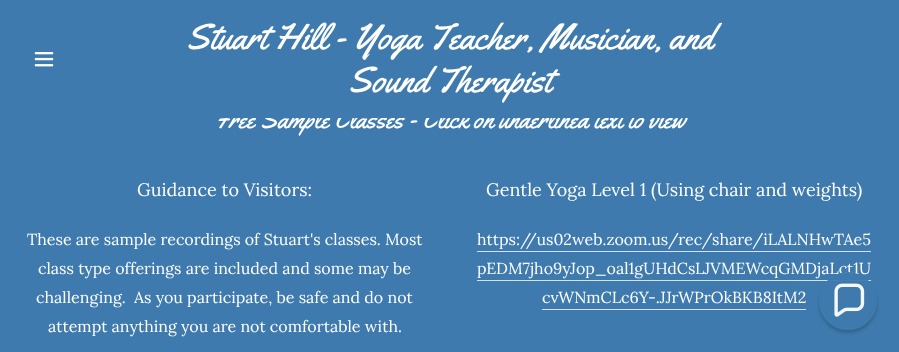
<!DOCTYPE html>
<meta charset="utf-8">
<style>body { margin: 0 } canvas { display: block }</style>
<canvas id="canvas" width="899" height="352"></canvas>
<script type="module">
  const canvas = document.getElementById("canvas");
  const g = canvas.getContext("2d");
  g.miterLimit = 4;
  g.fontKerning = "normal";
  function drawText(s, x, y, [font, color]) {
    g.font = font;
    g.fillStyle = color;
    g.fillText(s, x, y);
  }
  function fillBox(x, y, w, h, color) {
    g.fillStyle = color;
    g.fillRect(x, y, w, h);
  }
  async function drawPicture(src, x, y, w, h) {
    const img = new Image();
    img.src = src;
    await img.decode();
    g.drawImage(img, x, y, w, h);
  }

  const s1 = ["26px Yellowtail", "#FFFFFF"];
  const s2 = ["36px Yellowtail", "#FFFFFF"];
  const s3 = ["18px Lora", "#FFFFFF"];
  const s4 = ["16px Lora", "#FFFFFF"];

  fillBox(0, 0, 899, 352, "#3E7AAD");
  drawText("Free Sample Classes - Click on underlined text to view", 214, 128, s1);
  fillBox(218, 108, 470, 10, "#3E7AAD");
  await drawPicture("pic1.png", 34, 52, 20, 15);
  drawText("Stuart Hill - Yoga Teacher, Musician, and", 186, 49, s2);
  drawText("Sound Therapist", 348, 92, s2);
  drawText("Guidance to Visitors:", 137, 196, s3);
  drawText("These are sample recordings of Stuart's classes. Most", 27, 245, s4);
  drawText("class type offerings are included and some may be", 38, 274, s4);
  drawText("challenging.  As you participate, be safe and do not", 36, 303, s4);
  drawText("attempt anything you are not comfortable with.", 48, 332, s4);
  drawText("Gentle Yoga Level 1 (Using chair and weights)", 486, 196, s3);
  drawText("https://us02web.zoom.us/rec/share/iLALNHwTAe5", 477, 245, s4);
  fillBox(477, 251, 394, 1, "#D2E2F8");
  drawText("pEDM7jho9yJop_oal1gUHdCsLJVMEWcqGMDjaLct1U", 477, 274, s4);
  fillBox(477, 280, 394, 1, "#D2E2F8");
  drawText("cvWNmCLc6Y-.JJrWPrOkBKB8ItM2", 542, 303, s4);
  fillBox(542, 309, 264, 1, "#D2E2F8");
  g.save();
  g.beginPath();
  g.moveTo(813, 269);
  g.lineTo(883, 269);
  g.lineTo(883, 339);
  g.lineTo(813, 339);
  g.closePath();
  g.moveTo(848, 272);
  g.bezierCurveTo(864, 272, 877, 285, 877, 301);
  g.bezierCurveTo(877, 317, 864, 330, 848, 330);
  g.bezierCurveTo(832, 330, 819, 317, 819, 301);
  g.bezierCurveTo(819, 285, 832, 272, 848, 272);
  g.closePath();
  g.clip("evenodd");
  g.fillStyle = "rgba(0, 0, 0, 0.19)";
  g.filter = "blur(1.5px)";
  g.beginPath();
  g.roundRect(819, 275, 58, 58, 29);
  g.fill();
  g.filter = "none";
  g.restore();
  g.fillStyle = "rgba(62, 122, 173, 0.95)";
  g.beginPath();
  g.arc(848, 301, 29, 0, Math.PI * 2);
  g.fill();
  await drawPicture("pic2.png", 834, 283, 31, 34);
</script>
